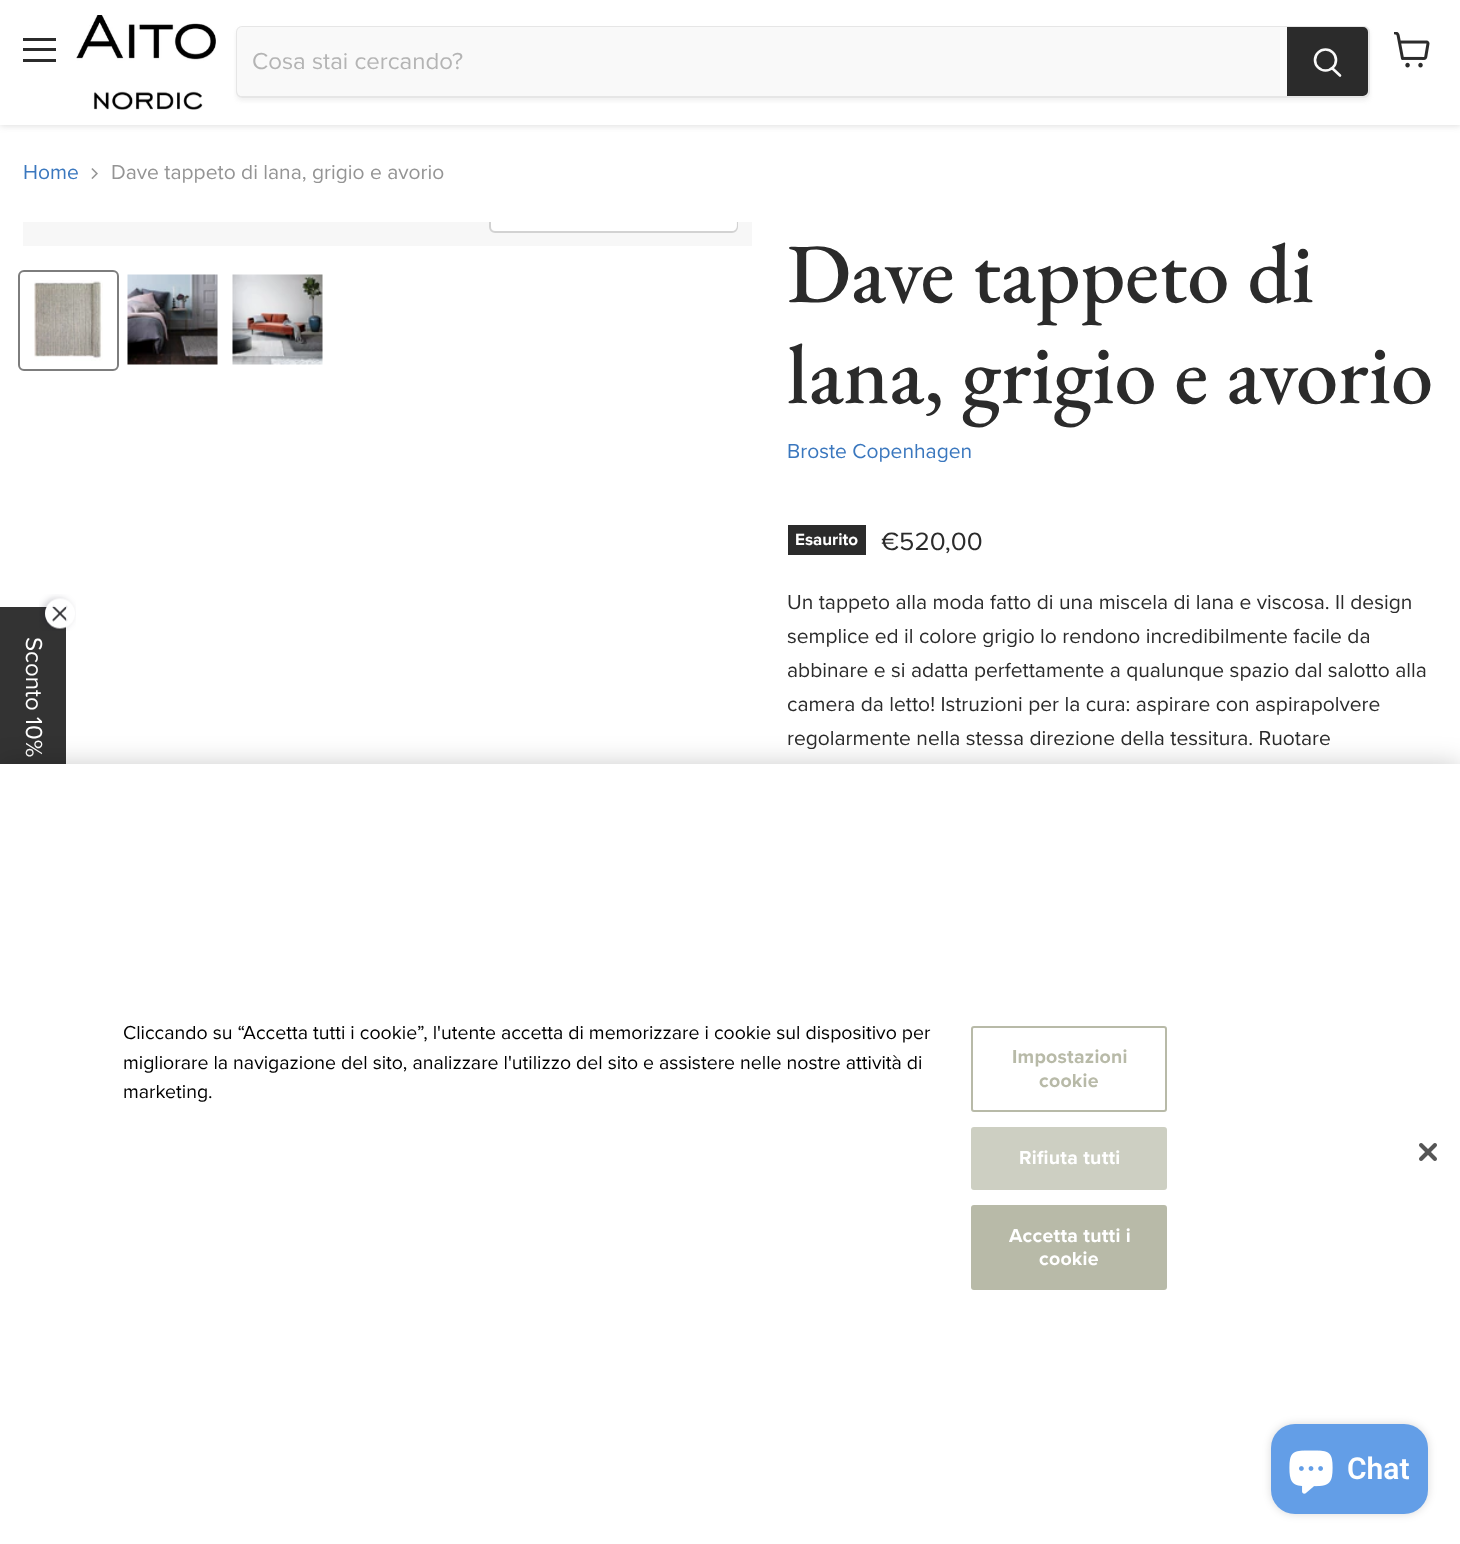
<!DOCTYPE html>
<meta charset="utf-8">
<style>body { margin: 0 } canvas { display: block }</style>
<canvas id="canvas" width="1460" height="1544"></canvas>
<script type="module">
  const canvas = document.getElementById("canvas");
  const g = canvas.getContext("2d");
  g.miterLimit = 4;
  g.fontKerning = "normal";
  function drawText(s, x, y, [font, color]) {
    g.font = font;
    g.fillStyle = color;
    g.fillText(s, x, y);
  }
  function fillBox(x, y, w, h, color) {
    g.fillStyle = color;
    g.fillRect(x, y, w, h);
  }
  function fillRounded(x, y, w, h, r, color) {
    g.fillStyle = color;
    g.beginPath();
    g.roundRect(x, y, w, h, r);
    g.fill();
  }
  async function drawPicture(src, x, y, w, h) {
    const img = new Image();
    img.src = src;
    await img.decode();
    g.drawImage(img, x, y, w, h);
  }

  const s1 = ["24px Proxima Nova", "#B4B4B4"];
  const s2 = ["21px Proxima Nova", "#3A77BE"];
  const s3 = ["21px Proxima Nova", "#949494"];
  const s4 = ["500 84.5px EB Garamond", "#2B2B2B"];
  const s5 = ["bold 17px Proxima Nova", "#FFFFFF"];
  const s6 = ["26px Proxima Nova", "#2B2B2B"];
  const s7 = ["21px Proxima Nova", "#2B2B2B"];
  const s8 = ["19.5px Proxima Nova", "#000000"];
  const s9 = ["bold 19.5px Proxima Nova", "#B8BAA8"];
  const s10 = ["bold 19.5px Proxima Nova", "#FFFFFF"];
  const s11 = ["600 30px Roboto", "#FFFFFF"];

  fillBox(0, 0, 1460, 1544, "#FFFFFF");
  g.fillStyle = "rgba(128, 128, 128, 0.25)";
  g.filter = "blur(3px)";
  g.beginPath();
  g.rect(0, 2, 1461, 124);
  g.fill();
  g.filter = "none";
  fillBox(0, 0, 1460, 125, "#FFFFFF");
  fillBox(23, 38, 33, 3, "#2B2B2B");
  fillBox(23, 48, 33, 3, "#2B2B2B");
  fillBox(23, 59, 33, 3, "#2B2B2B");
  await drawPicture("pic1.png", 76, 15, 140, 95);
  g.save();
  g.beginPath();
  g.moveTo(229, 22);
  g.lineTo(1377, 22);
  g.lineTo(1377, 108);
  g.lineTo(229, 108);
  g.closePath();
  g.moveTo(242, 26);
  g.lineTo(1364, 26);
  g.bezierCurveTo(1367.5, 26, 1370, 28.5, 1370, 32);
  g.lineTo(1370, 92);
  g.bezierCurveTo(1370, 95.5, 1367.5, 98, 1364, 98);
  g.lineTo(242, 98);
  g.bezierCurveTo(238.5, 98, 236, 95.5, 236, 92);
  g.lineTo(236, 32);
  g.bezierCurveTo(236, 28.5, 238.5, 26, 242, 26);
  g.closePath();
  g.clip("evenodd");
  g.fillStyle = "rgba(128, 128, 128, 0.11)";
  g.filter = "blur(2px)";
  g.beginPath();
  g.roundRect(236, 29, 1134, 72, 6);
  g.fill();
  g.filter = "none";
  g.restore();
  g.beginPath();
  g.roundRect(237, 27, 1132, 70, 5);
  g.strokeStyle = "rgba(128, 128, 128, 0.2)";
  g.lineWidth = 2;
  g.stroke();
  g.fillStyle = "#F9F9F9";
  g.beginPath();
  g.roundRect(237, 27, 1050, 69, [5, 0, 0, 5]);
  g.fill();
  drawText("Cosa stai cercando?", 252, 69, s1);
  g.fillStyle = "#2B2B2B";
  g.beginPath();
  g.roundRect(1288, 28, 79, 67, [0, 4, 4, 0]);
  g.fill();
  g.strokeStyle = "#2B2B2B";
  g.stroke();
  g.beginPath();
  g.moveTo(1340, 75.5);
  g.lineTo(1332.5, 68.5);
  g.strokeStyle = "#F9F9F9";
  g.lineWidth = 2.6;
  g.lineCap = "round";
  g.stroke();
  g.beginPath();
  g.arc(1325.5, 60, 10.5, 0, Math.PI * 2);
  g.stroke();
  await drawPicture("pic2.png", 1394, 32, 36, 36);
  drawText("Home", 23, 179, s2);
  await drawPicture("pic3.png", 91, 168, 7, 11);
  drawText("Dave tappeto di lana, grigio e avorio", 111, 179, s3);
  fillBox(23, 222, 729, 24, "#F7F7F7");
  g.save();
  g.beginPath();
  g.rect(23, 222, 729, 24);
  g.clip();
  g.beginPath();
  g.roundRect(490, 192, 247, 40, 5);
  g.strokeStyle = "#D2D2D2";
  g.lineWidth = 2;
  g.stroke();
  g.restore();
  g.fillStyle = "rgba(255, 255, 255, 0.9)";
  g.beginPath();
  g.roundRect(491, 222, 246, 9, [0, 0, 5, 5]);
  g.fill();
  g.beginPath();
  g.roundRect(19, 271, 99, 99, 5);
  g.strokeStyle = "#7D7D7D";
  g.lineWidth = 2;
  g.stroke();
  await drawPicture("pic4.png", 34, 280, 69, 81);
  await drawPicture("pic5.png", 127, 274, 91, 91);
  await drawPicture("pic6.png", 232, 274, 91, 91);
  drawText("Dave tappeto di", 787, 302, s4);
  drawText("lana, grigio e avorio", 787, 403, s4);
  drawText("Broste Copenhagen", 787, 458, s2);
  fillBox(788, 525, 78, 30, "#2B2B2B");
  drawText("Esaurito", 795, 545, s5);
  drawText("€520,00", 881, 550, s6);
  drawText("Un tappeto alla moda fatto di una miscela di lana e viscosa. Il design", 787, 609, s7);
  drawText("semplice ed il colore grigio lo rendono incredibilmente facile da", 787, 643, s7);
  drawText("abbinare e si adatta perfettamente a qualunque spazio dal salotto alla", 787, 677, s7);
  drawText("camera da letto! Istruzioni per la cura: aspirare con aspirapolvere", 787, 711, s7);
  drawText("regolarmente nella stessa direzione della tessitura. Ruotare", 787, 745, s7);
  fillBox(0, 607, 66, 157, "#333333");
  await drawPicture("pic7.png", 39, 594, 37, 37);
  g.font = "24px Proxima Nova";
  g.fillStyle = "#FFFFFF";
  g.save();
  g.translate(26, 637);
  g.rotate(90 * Math.PI / 180);
  g.fillText("Sconto 10%", 0, 0);
  g.restore();
  g.fillStyle = "rgba(0, 0, 0, 0.2)";
  g.filter = "blur(13.5px)";
  g.beginPath();
  g.rect(0, 764, 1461, 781);
  g.fill();
  g.filter = "none";
  fillBox(0, 764, 1460, 780, "#FFFFFF");
  drawText("Cliccando su “Accetta tutti i cookie”, l'utente accetta di memorizzare i cookie sul dispositivo per", 123, 1039, s8);
  drawText("migliorare la navigazione del sito, analizzare l'utilizzo del sito e assistere nelle nostre attività di", 123, 1069, s8);
  drawText("marketing.", 123, 1098, s8);
  g.beginPath();
  g.roundRect(972, 1027, 194, 84, 2);
  g.strokeStyle = "#B8BAA8";
  g.stroke();
  g.letterSpacing = "0.25px";
  drawText("Impostazioni", 1012, 1063, s9);
  drawText("cookie", 1039, 1087, s9);
  g.fillStyle = "#CDCFC2";
  g.beginPath();
  g.roundRect(972, 1128, 194, 61, 2);
  g.fill();
  g.strokeStyle = "#CDCFC2";
  g.stroke();
  drawText("Rifiuta tutti", 1019, 1164, s10);
  g.fillStyle = "#B8BAA8";
  g.beginPath();
  g.roundRect(972, 1206, 194, 83, 2);
  g.fill();
  g.strokeStyle = "#B8BAA8";
  g.stroke();
  drawText("Accetta tutti i", 1009, 1242, s10);
  drawText("cookie", 1039, 1265, s10);
  await drawPicture("pic8.png", 1419, 1143, 18, 18);
  g.fillStyle = "rgba(0, 0, 0, 0.15)";
  g.filter = "blur(4px)";
  g.beginPath();
  g.roundRect(1271, 1424, 157, 90, 24);
  g.fill();
  g.filter = "none";
  fillRounded(1271, 1424, 157, 90, 24, "#639EE7");
  await drawPicture("pic9.png", 1289, 1450, 44, 44);
  g.letterSpacing = "0px";
  drawText("Chat", 1347, 1479, s11);
</script>
